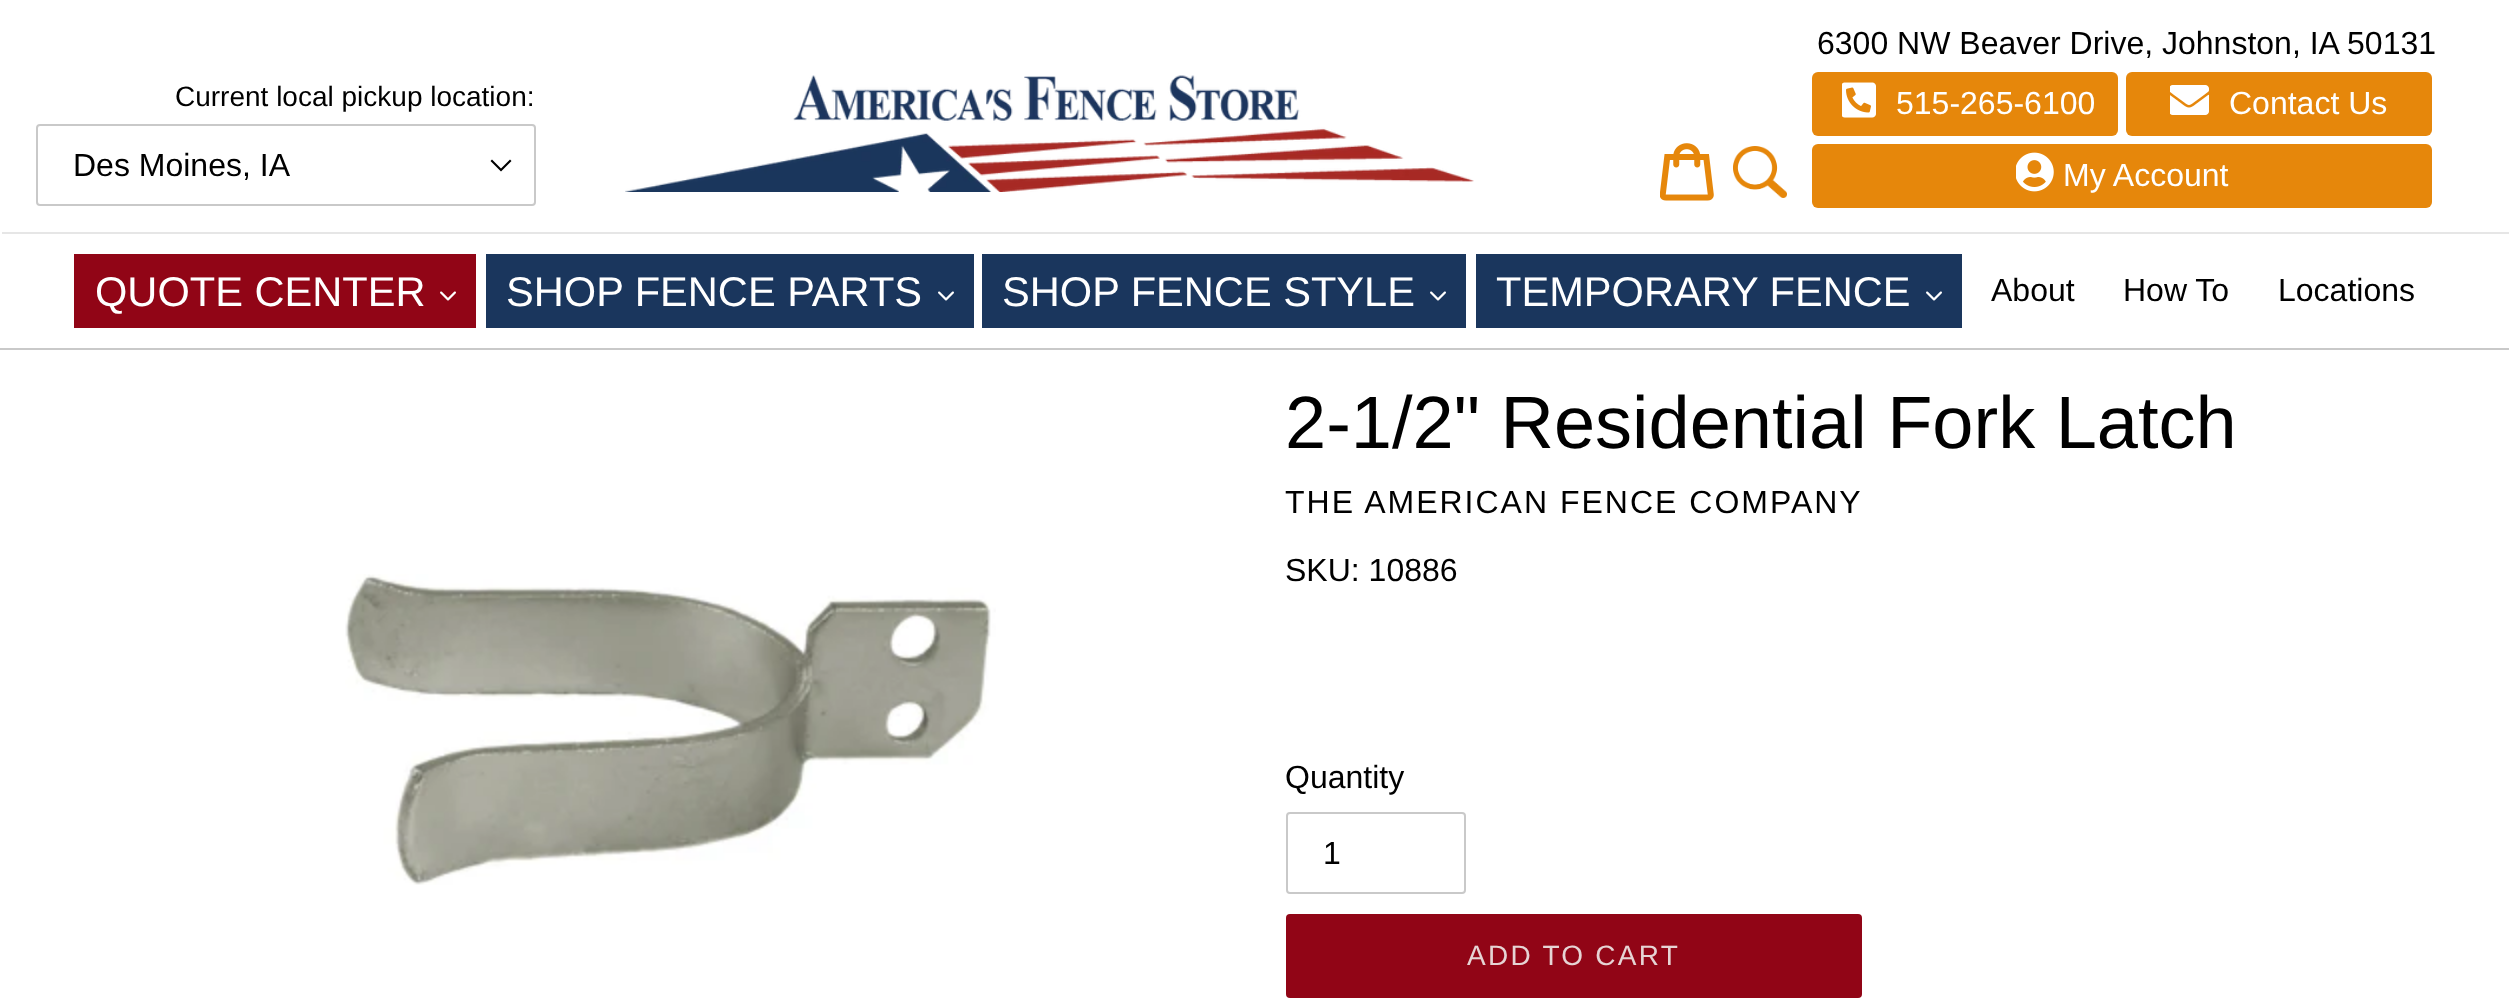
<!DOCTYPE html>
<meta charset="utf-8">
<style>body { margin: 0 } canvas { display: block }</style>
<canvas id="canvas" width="2509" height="1006"></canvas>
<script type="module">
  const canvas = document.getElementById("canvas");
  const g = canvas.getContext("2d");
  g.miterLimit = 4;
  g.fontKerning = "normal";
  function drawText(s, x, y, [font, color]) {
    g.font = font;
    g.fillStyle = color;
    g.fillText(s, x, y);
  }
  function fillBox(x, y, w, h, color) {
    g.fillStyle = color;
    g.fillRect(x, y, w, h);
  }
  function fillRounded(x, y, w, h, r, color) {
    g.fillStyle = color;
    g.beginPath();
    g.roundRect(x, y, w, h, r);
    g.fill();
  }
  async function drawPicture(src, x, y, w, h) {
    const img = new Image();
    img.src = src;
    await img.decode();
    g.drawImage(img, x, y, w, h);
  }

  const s1 = ["28px Liberation Sans", "#000000"];
  const s2 = ["32px Liberation Sans", "#000000"];
  const s3 = ["32px Liberation Sans", "#FFFFFF"];
  const s4 = ["41.6px Liberation Sans", "#FFFFFF"];
  const s5 = ["74px Liberation Sans", "#000000"];
  const s6 = ["28px Liberation Sans", "#E6D4D4"];

  fillBox(0, 0, 2509, 1006, "#FFFFFF");
  fillBox(2, 232, 2507, 2, "#E6E6E6");
  drawText("Current local pickup location:", 175, 106, s1);
  g.beginPath();
  g.moveTo(501, 171.5);
  g.lineTo(490.5, 161);
  g.lineTo(492, 159.5);
  g.lineTo(501, 168.5);
  g.lineTo(510, 159.5);
  g.lineTo(511.5, 161);
  g.closePath();
  g.fill();
  g.beginPath();
  g.roundRect(37, 125, 498, 80, 3);
  g.strokeStyle = "#C9C9C9";
  g.lineWidth = 2;
  g.stroke();
  drawText("Des Moines, IA", 73, 176, s2);
  await drawPicture("pic1.png", 625, 75, 849, 117);
  await drawPicture("pic2.png", 1660, 143, 54, 58);
  await drawPicture("pic3.png", 1733, 146, 54, 52);
  drawText("6300 NW Beaver Drive, Johnston, IA 50131", 1817, 54, s2);
  fillRounded(1812, 72, 306, 64, 6, "#E6870B");
  await drawPicture("pic4.png", 1842, 82, 34, 36);
  drawText("515-265-6100", 1896, 114, s3);
  fillRounded(2126, 72, 306, 64, 6, "#E6870B");
  await drawPicture("pic5.png", 2170, 85, 39, 30);
  drawText("Contact Us", 2229, 114, s3);
  fillRounded(1812, 144, 620, 64, 6, "#E6870B");
  await drawPicture("pic6.png", 2016, 152, 38, 40);
  drawText("My Account", 2063, 186, s3);
  fillBox(0, 348, 2509, 2, "#C9C9C9");
  fillBox(74, 254, 402, 74, "#910516");
  drawText("QUOTE CENTER", 95, 306, s4);
  await drawPicture("pic7.png", 440, 291, 16, 10);
  fillBox(486, 254, 488, 74, "#1A365D");
  drawText("SHOP FENCE PARTS", 506, 306, s4);
  await drawPicture("pic8.png", 938, 291, 16, 10);
  fillBox(982, 254, 484, 74, "#1A365D");
  drawText("SHOP FENCE STYLE", 1002, 306, s4);
  await drawPicture("pic8.png", 1430, 291, 16, 10);
  fillBox(1476, 254, 486, 74, "#1A365D");
  drawText("TEMPORARY FENCE", 1496, 306, s4);
  await drawPicture("pic8.png", 1926, 291, 16, 10);
  drawText("About", 1991, 301, s2);
  drawText("How To", 2123, 301, s2);
  drawText("Locations", 2278, 301, s2);
  await drawPicture("pic9.png", 345, 574, 651, 311);
  drawText("2-1/2\" Residential Fork Latch", 1285, 448, s5);
  g.letterSpacing = "2px";
  drawText("THE AMERICAN FENCE COMPANY", 1285, 513, s2);
  g.letterSpacing = "0px";
  drawText("SKU: 10886", 1285, 581, s2);
  drawText("Quantity", 1285, 788, s2);
  g.beginPath();
  g.roundRect(1287, 813, 178, 80, 3);
  g.stroke();
  drawText("1", 1323, 864, s2);
  fillRounded(1286, 914, 576, 84, 4, "#910516");
  g.letterSpacing = "2.25px";
  drawText("ADD TO CART", 1467, 965, s6);
</script>
